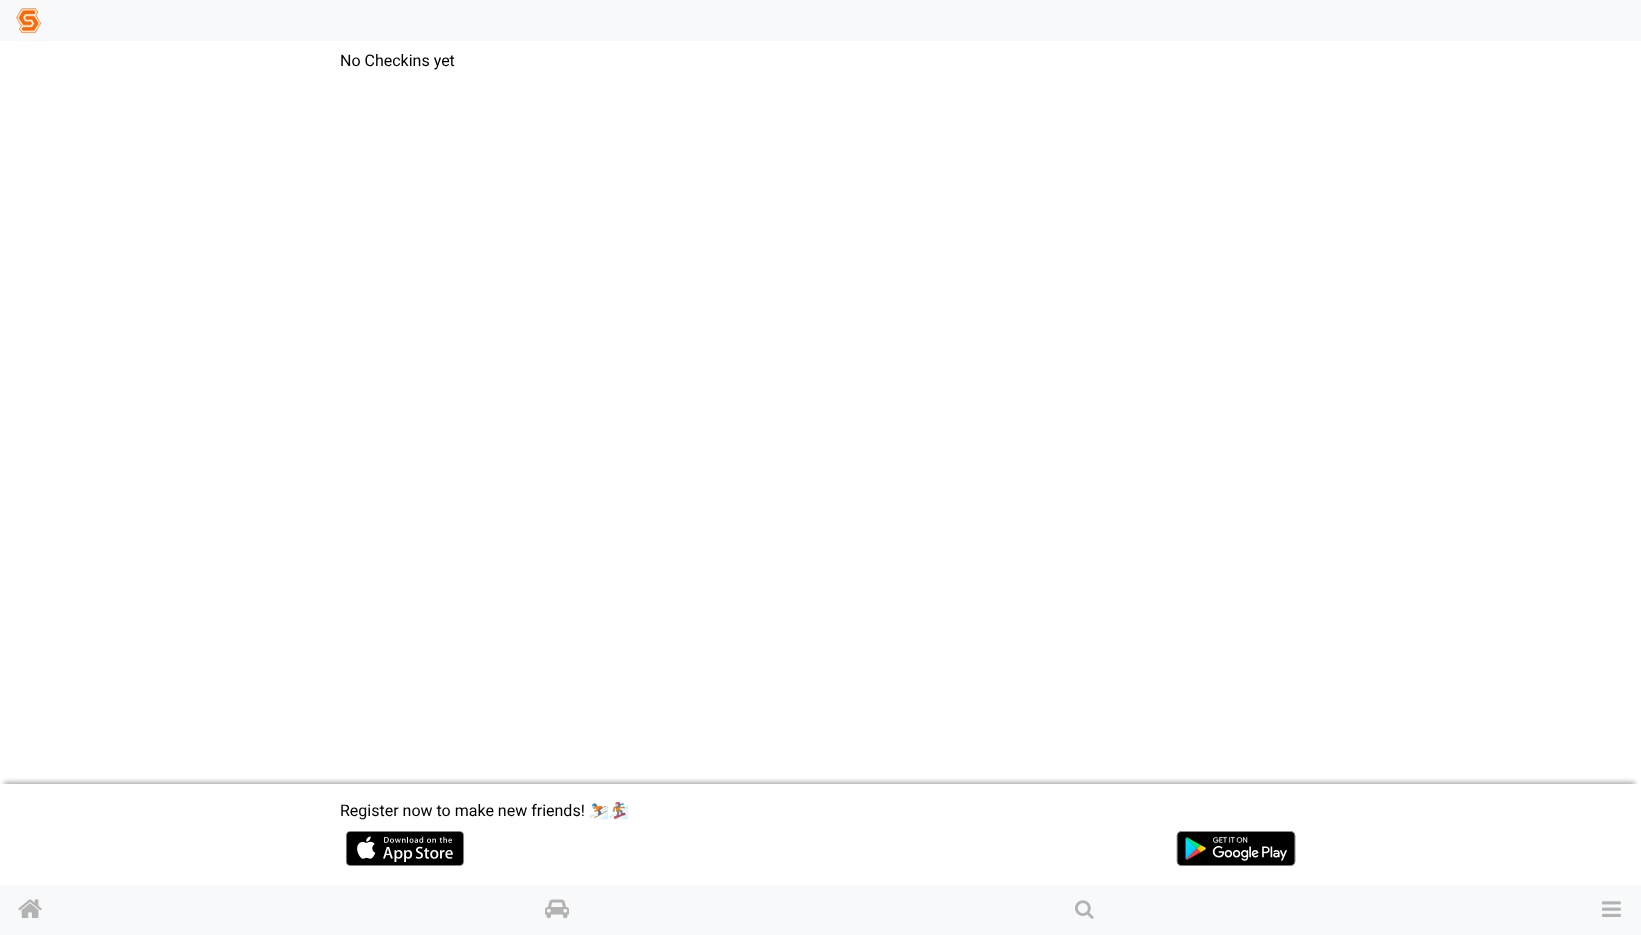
<!DOCTYPE html>
<meta charset="utf-8">
<style>body { margin: 0 } canvas { display: block }</style>
<canvas id="canvas" width="1641" height="935"></canvas>
<script type="module">
  const canvas = document.getElementById("canvas");
  const g = canvas.getContext("2d");
  g.miterLimit = 4;
  g.fontKerning = "normal";
  function drawText(s, x, y, [font, color]) {
    g.font = font;
    g.fillStyle = color;
    g.fillText(s, x, y);
  }
  function fillBox(x, y, w, h, color) {
    g.fillStyle = color;
    g.fillRect(x, y, w, h);
  }
  async function drawPicture(src, x, y, w, h) {
    const img = new Image();
    img.src = src;
    await img.decode();
    g.drawImage(img, x, y, w, h);
  }

  const s1 = ["16px Roboto", "#000000"];
  const s2 = ["16px Noto Color Emoji", "#000000"];

  fillBox(0, 0, 1641, 935, "#FFFFFF");
  fillBox(0, 0, 1641, 41, "#F8F9FA");
  await drawPicture("pic1.png", 16, 8, 25, 25);
  drawText("No Checkins yet", 340, 66, s1);
  g.save();
  g.beginPath();
  g.rect(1, 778, 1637, 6);
  g.clip();
  g.fillStyle = "rgba(0, 0, 0, 0.33)";
  g.filter = "blur(2.5px)";
  g.beginPath();
  g.rect(4, 782, 1631, 95);
  g.fill();
  g.filter = "none";
  g.restore();
  drawText("Register now to make new friends!", 340, 816, s1);
  drawText("⛷️🏂", 589, 816, s2);
  await drawPicture("pic2.png", 345, 831, 120, 35);
  await drawPicture("pic3.png", 1176, 831, 120, 35);
  fillBox(0, 885, 1641, 50, "#F8F9FA");
  await drawPicture("pic4.png", 18, 899, 24, 19);
  await drawPicture("pic5.png", 545, 899, 24, 20);
  await drawPicture("pic6.png", 1075, 900, 19, 19);
  await drawPicture("pic7.png", 1602, 901, 19, 16);
</script>
